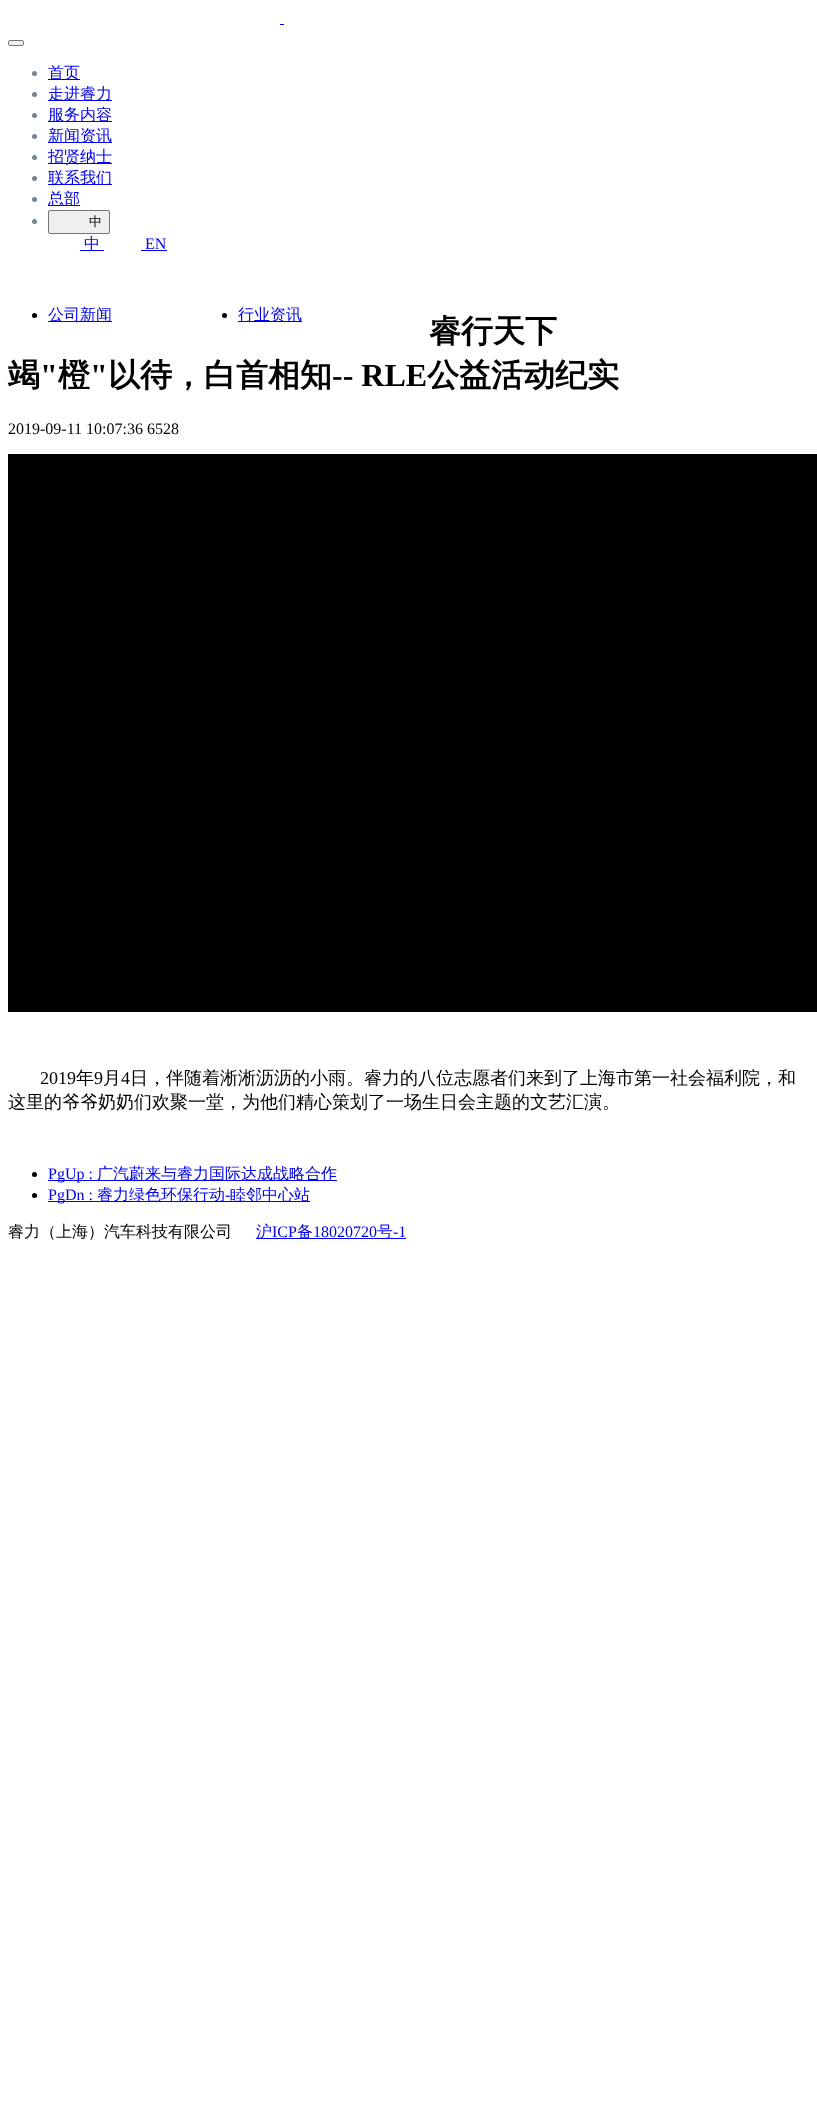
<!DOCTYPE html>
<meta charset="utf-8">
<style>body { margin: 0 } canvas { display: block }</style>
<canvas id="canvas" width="817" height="2128"></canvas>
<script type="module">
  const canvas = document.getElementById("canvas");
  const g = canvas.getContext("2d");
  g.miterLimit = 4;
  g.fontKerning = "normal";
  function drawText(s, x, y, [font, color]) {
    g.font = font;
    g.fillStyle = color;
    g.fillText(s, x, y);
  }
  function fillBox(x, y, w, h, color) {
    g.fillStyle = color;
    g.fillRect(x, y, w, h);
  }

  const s1 = ["500 16px WenQuanYi Zen Hei", "#0000EE"];
  const s2 = ["500 13px WenQuanYi Zen Hei", "#000000"];
  const s3 = ["16px Liberation Serif", "#0000EE"];
  const s4 = ["bold 32px WenQuanYi Zen Hei", "#000000"];
  const s5 = ["bold 32px Liberation Serif", "#000000"];
  const s6 = ["16px Liberation Serif", "#000000"];
  const s7 = ["18px Liberation Serif", "#000000"];
  const s8 = ["500 18px WenQuanYi Zen Hei", "#000000"];
  const s9 = ["500 16px WenQuanYi Zen Hei", "#000000"];

  fillBox(0, 0, 817, 2128, "#FFFFFF");
  fillBox(280, 24, 4, 1, "#0000EE");
  g.fillStyle = "#EFEFEF";
  g.beginPath();
  g.roundRect(8.5, 40.5, 15, 5, 1.5);
  g.fill();
  g.strokeStyle = "#767676";
  g.stroke();
  g.fillStyle = "#76838F";
  g.beginPath();
  g.arc(34.5, 73.5, 2.5, 0, Math.PI * 2);
  g.fill();
  fillBox(48, 79, 32, 1, "#0000EE");
  drawText("首页", 48, 78, s1);
  g.fillStyle = "#76838F";
  g.beginPath();
  g.arc(34.5, 94.5, 2.5, 0, Math.PI * 2);
  g.fill();
  fillBox(48, 100, 64, 1, "#0000EE");
  drawText("走进睿力", 48, 99, s1);
  g.fillStyle = "#76838F";
  g.beginPath();
  g.arc(34.5, 115.5, 2.5, 0, Math.PI * 2);
  g.fill();
  fillBox(48, 121, 64, 1, "#0000EE");
  drawText("服务内容", 48, 120, s1);
  g.fillStyle = "#76838F";
  g.beginPath();
  g.arc(34.5, 136.5, 2.5, 0, Math.PI * 2);
  g.fill();
  fillBox(48, 142, 64, 1, "#0000EE");
  drawText("新闻资讯", 48, 141, s1);
  g.fillStyle = "#76838F";
  g.beginPath();
  g.arc(34.5, 157.5, 2.5, 0, Math.PI * 2);
  g.fill();
  fillBox(48, 163, 64, 1, "#0000EE");
  drawText("招贤纳士", 48, 162, s1);
  g.fillStyle = "#76838F";
  g.beginPath();
  g.arc(34.5, 178.5, 2.5, 0, Math.PI * 2);
  g.fill();
  fillBox(48, 184, 64, 1, "#0000EE");
  drawText("联系我们", 48, 183, s1);
  g.fillStyle = "#76838F";
  g.beginPath();
  g.arc(34.5, 199.5, 2.5, 0, Math.PI * 2);
  g.fill();
  fillBox(48, 205, 32, 1, "#0000EE");
  drawText("总部", 48, 204, s1);
  g.fillStyle = "#76838F";
  g.beginPath();
  g.arc(34.5, 221.5, 2.5, 0, Math.PI * 2);
  g.fill();
  g.fillStyle = "#EFEFEF";
  g.beginPath();
  g.roundRect(48.5, 210.5, 61, 23, 1.5);
  g.fill();
  g.stroke();
  drawText("中", 89, 226, s2);
  fillBox(80, 250, 24, 1, "#0000EE");
  drawText("中", 84, 249, s1);
  drawText("EN", 145, 249, s3);
  fillBox(141, 250, 26, 1, "#0000EE");
  g.fillStyle = "#000000";
  g.beginPath();
  g.arc(34.5, 315.5, 2.5, 0, Math.PI * 2);
  g.fill();
  fillBox(48, 321, 64, 1, "#0000EE");
  drawText("公司新闻", 48, 320, s1);
  g.fillStyle = "#000000";
  g.beginPath();
  g.arc(224.5, 315.5, 2.5, 0, Math.PI * 2);
  g.fill();
  fillBox(238, 321, 64, 1, "#0000EE");
  drawText("行业资讯", 238, 320, s1);
  drawText("睿行天下", 429, 342, s4);
  drawText("竭", 8, 386, s4);
  drawText("\"", 40, 386, s5);
  drawText("橙", 58, 386, s4);
  drawText("\"", 90, 386, s5);
  drawText("以待，白首相知", 108, 386, s4);
  drawText("-- RLE", 332, 386, s5);
  drawText("公益活动纪实", 427, 386, s4);
  drawText("2019-09-11 10:07:36 6528", 8, 434, s6);
  fillBox(8, 454, 809, 558, "#000000");
  drawText("2019", 40, 1084, s7);
  drawText("年", 76, 1084, s8);
  drawText("9", 94, 1084, s7);
  drawText("月", 103, 1084, s8);
  drawText("4", 121, 1084, s7);
  drawText("日，伴随着淅淅沥沥的小雨。睿力的八位志愿者们来到了上海市第一社会福利院，和", 130, 1084, s8);
  drawText("这里的爷爷奶奶们欢聚一堂，为他们精心策划了一场生日会主题的文艺汇演。", 8, 1108, s8);
  g.beginPath();
  g.arc(34.5, 1174.5, 2.5, 0, Math.PI * 2);
  g.fill();
  fillBox(48, 1180, 289, 1, "#0000EE");
  drawText("PgUp :", 48, 1179, s3);
  drawText("广汽蔚来与睿力国际达成战略合作", 97, 1179, s1);
  g.fillStyle = "#000000";
  g.beginPath();
  g.arc(34.5, 1195.5, 2.5, 0, Math.PI * 2);
  g.fill();
  fillBox(48, 1201, 262, 1, "#0000EE");
  drawText("PgDn :", 48, 1200, s3);
  drawText("睿力绿色环保行动", 97, 1200, s1);
  drawText("-", 225, 1200, s3);
  drawText("睦邻中心站", 230, 1200, s1);
  drawText("睿力（上海）汽车科技有限公司", 8, 1237, s9);
  fillBox(256, 1238, 150, 1, "#0000EE");
  drawText("沪", 256, 1237, s1);
  drawText("ICP", 272, 1237, s3);
  drawText("备", 297, 1237, s1);
  drawText("18020720", 313, 1237, s3);
  drawText("号", 377, 1237, s1);
  drawText("-1", 393, 1237, s3);
</script>
